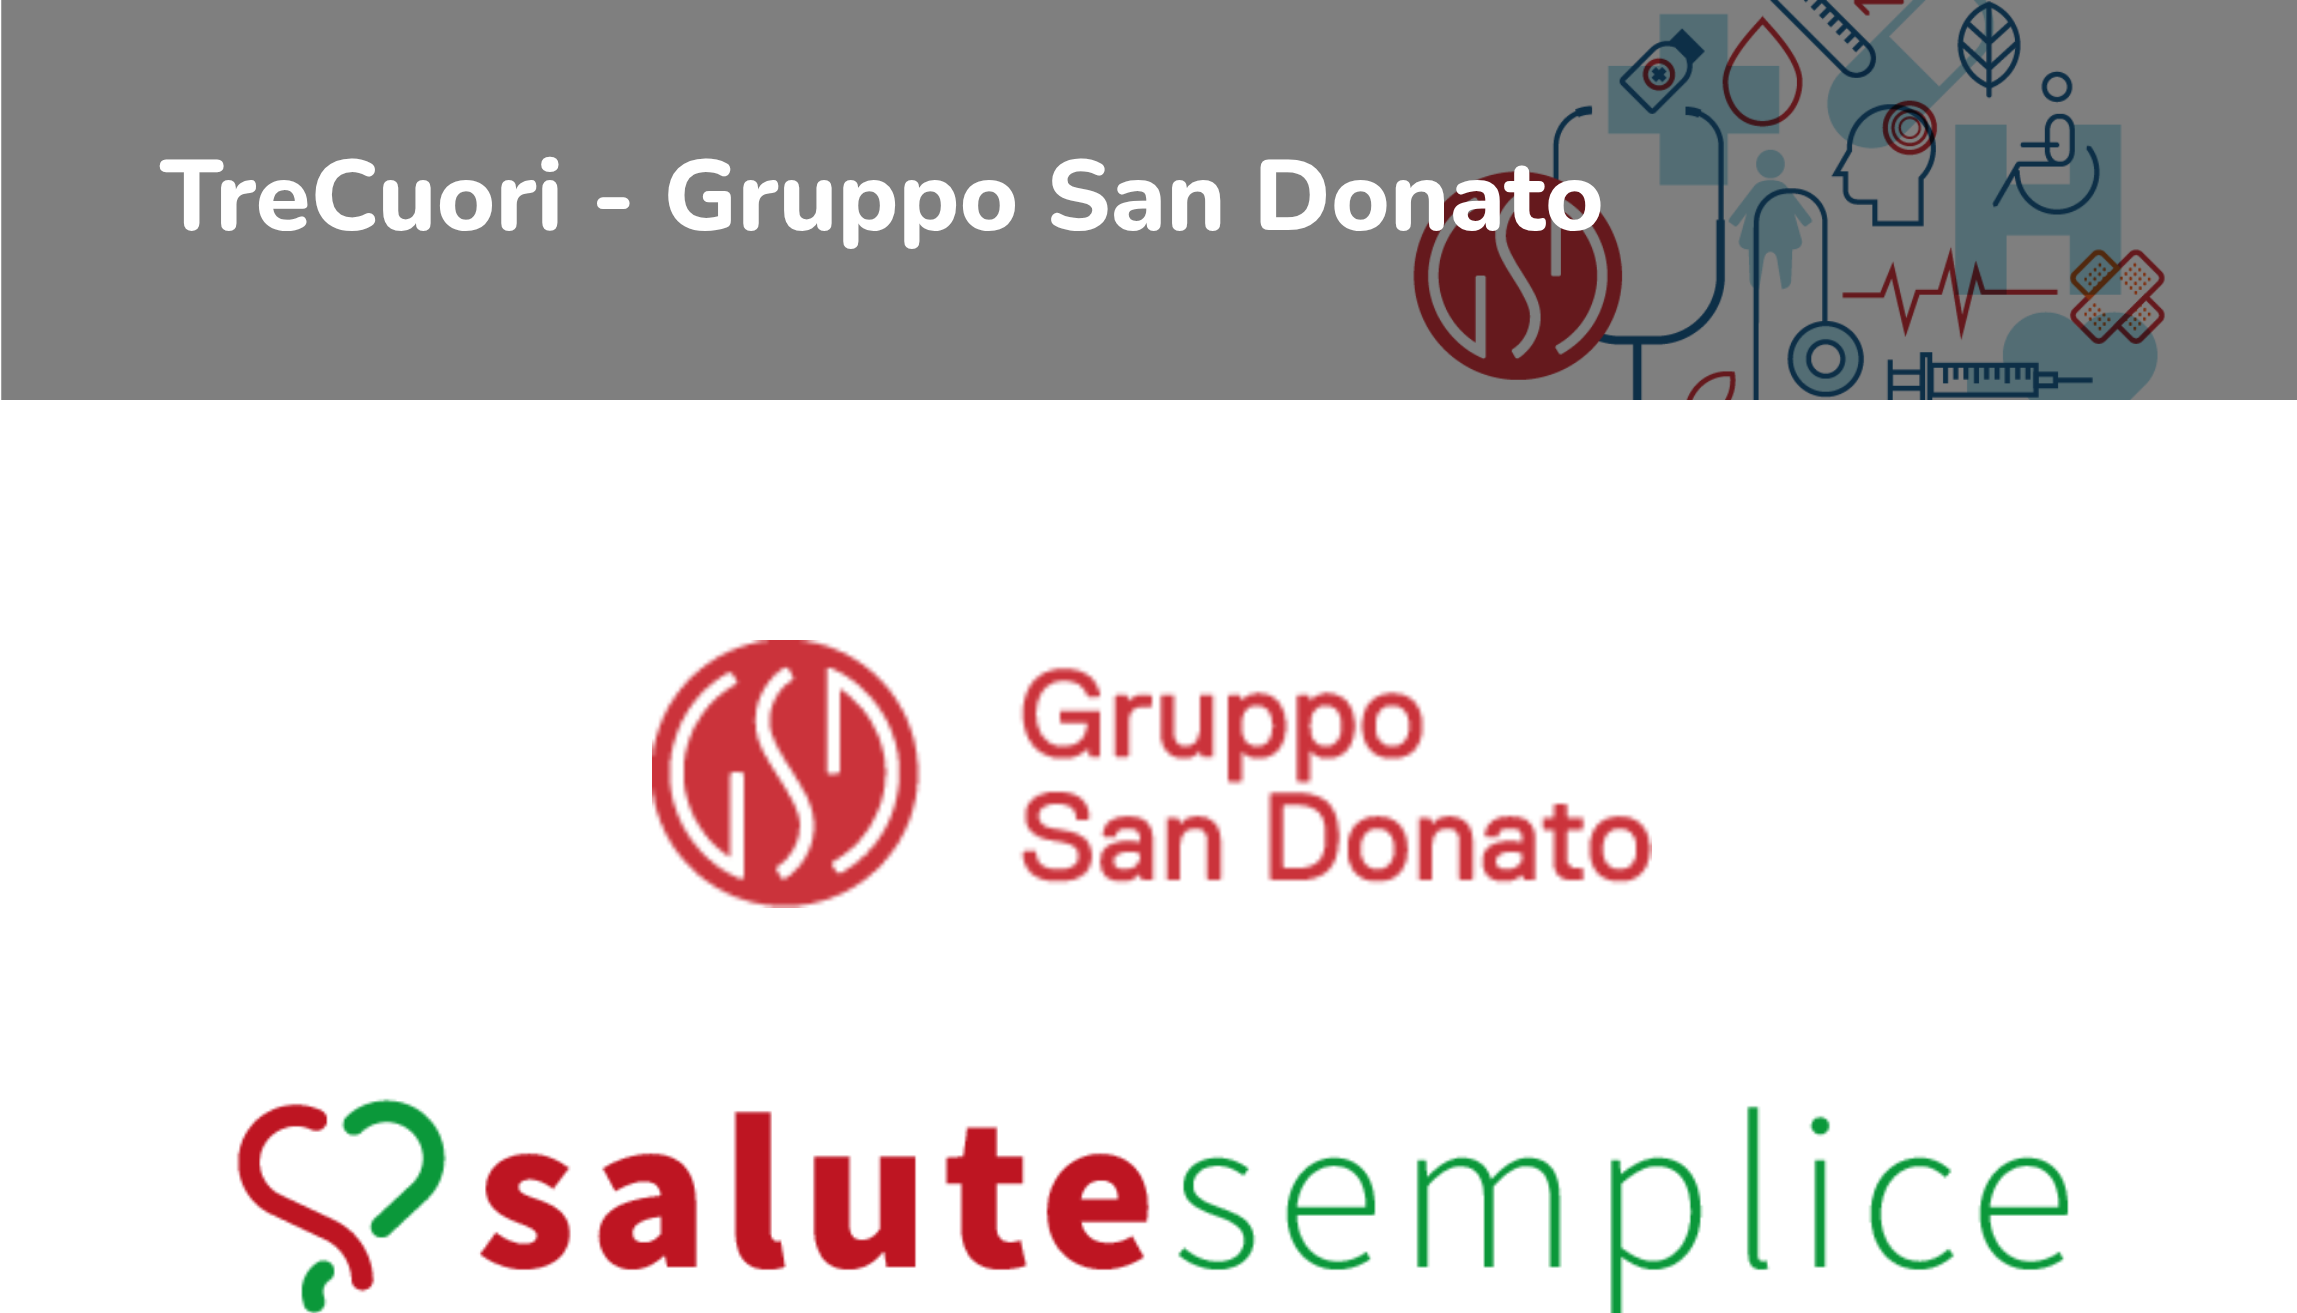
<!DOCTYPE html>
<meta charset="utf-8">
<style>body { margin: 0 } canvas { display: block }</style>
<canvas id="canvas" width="2297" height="1313"></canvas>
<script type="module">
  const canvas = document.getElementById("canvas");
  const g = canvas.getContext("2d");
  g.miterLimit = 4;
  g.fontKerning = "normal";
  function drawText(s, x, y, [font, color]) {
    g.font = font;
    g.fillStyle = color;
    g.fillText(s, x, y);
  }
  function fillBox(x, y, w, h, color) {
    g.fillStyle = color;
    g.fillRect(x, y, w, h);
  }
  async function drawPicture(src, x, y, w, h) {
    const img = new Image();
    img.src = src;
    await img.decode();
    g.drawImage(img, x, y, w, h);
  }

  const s1 = ["800 100px Nunito", "#FFFFFF"];

  fillBox(0, 0, 2297, 1313, "#FFFFFF");
  await drawPicture("pic1.png", 1, 0, 2296, 400);
  drawText("TreCuori - Gruppo San Donato", 160, 230, s1);
  await drawPicture("pic2.png", 652, 640, 1000, 268);
  await drawPicture("pic3.png", 236, 1098, 1833, 215);
</script>
